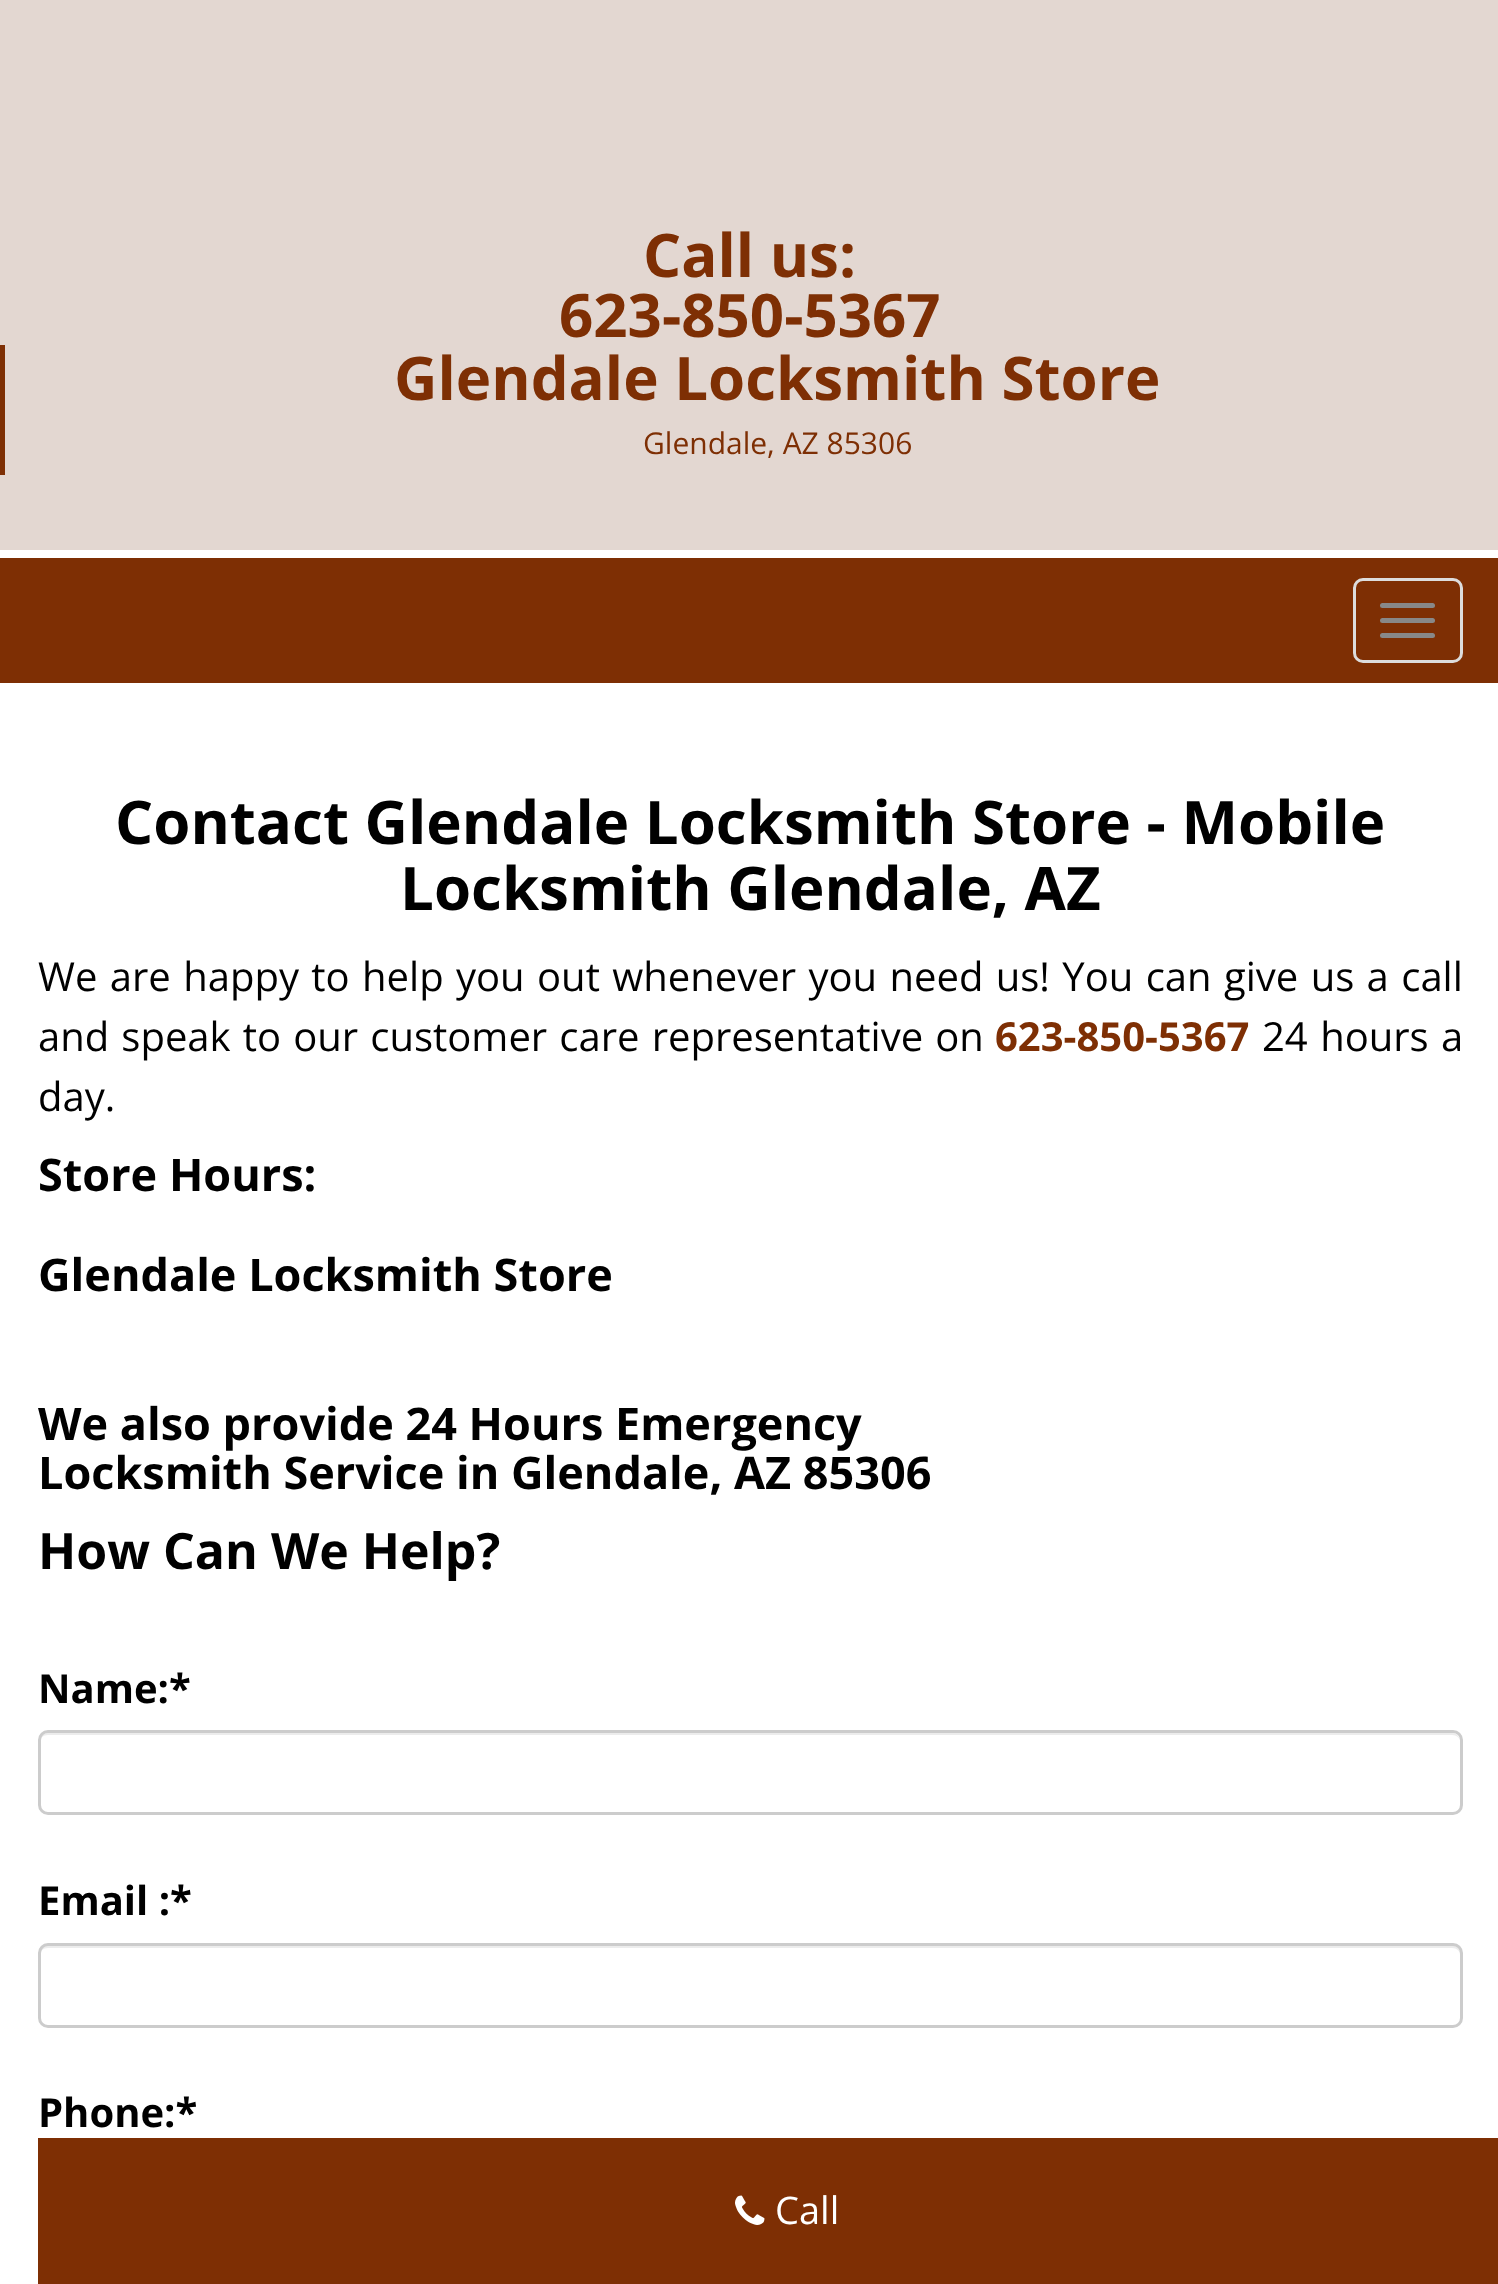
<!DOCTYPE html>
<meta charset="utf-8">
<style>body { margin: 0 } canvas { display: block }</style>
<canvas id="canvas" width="1498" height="2284"></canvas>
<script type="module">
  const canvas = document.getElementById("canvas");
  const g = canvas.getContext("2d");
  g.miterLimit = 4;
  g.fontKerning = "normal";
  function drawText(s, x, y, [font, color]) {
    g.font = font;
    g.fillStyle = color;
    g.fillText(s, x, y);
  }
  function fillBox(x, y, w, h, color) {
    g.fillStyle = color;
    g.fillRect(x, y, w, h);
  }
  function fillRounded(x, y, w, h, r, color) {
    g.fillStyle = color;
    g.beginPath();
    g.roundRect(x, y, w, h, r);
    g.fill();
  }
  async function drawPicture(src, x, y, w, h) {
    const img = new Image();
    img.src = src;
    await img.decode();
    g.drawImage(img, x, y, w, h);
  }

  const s1 = ["bold 60px Open Sans", "#7E2F04"];
  const s2 = ["30px Open Sans", "#7E2F04"];
  const s3 = ["bold 60px Open Sans", "#000000"];
  const s4 = ["40px Open Sans", "#000000"];
  const s5 = ["bold 40px Open Sans", "#7E2F04"];
  const s6 = ["bold 45px Open Sans", "#000000"];
  const s7 = ["bold 50px Open Sans", "#000000"];
  const s8 = ["bold 40px Open Sans", "#000000"];
  const s9 = ["38px Open Sans", "#FFFFFF"];

  fillBox(0, 0, 1498, 2284, "#E3D7D1");
  drawText("Call us:", 643, 277, s1);
  drawText("623-850-5367", 559, 337, s1);
  fillBox(0, 345, 5, 130, "#7E2F04");
  drawText("Glendale Locksmith Store", 394, 400, s1);
  drawText("Glendale, AZ 85306", 643, 454, s2);
  fillBox(0, 558, 1498, 125, "#7E2F04");
  fillBox(0, 550, 1498, 8, "#FFFFFF");
  g.beginPath();
  g.roundRect(1354.5, 579.5, 107, 82, 8.5);
  g.strokeStyle = "#DDDDDD";
  g.lineWidth = 3;
  g.stroke();
  fillRounded(1380, 603, 55, 5, 2.5, "#888888");
  fillRounded(1380, 618, 55, 5, 2.5, "#888888");
  fillRounded(1380, 633, 55, 5, 2.5, "#888888");
  fillBox(0, 683, 1498, 1601, "#FFFFFF");
  drawText("Contact Glendale Locksmith Store - Mobile", 115, 844, s3);
  drawText("Locksmith Glendale, AZ", 400, 910, s3);
  g.wordSpacing = "2px";
  drawText("We are happy to help you out whenever you need us! You can give us a call", 38, 991, s4);
  g.wordSpacing = "1.75px";
  drawText("and speak to our customer care representative on", 38, 1051, s4);
  g.wordSpacing = "0px";
  drawText("623-850-5367", 995, 1051, s5);
  g.wordSpacing = "2px";
  drawText("24 hours a", 1262, 1051, s4);
  g.wordSpacing = "0px";
  drawText("day.", 38, 1111, s4);
  drawText("Store Hours:", 38, 1191, s6);
  drawText("Glendale Locksmith Store", 38, 1291, s6);
  drawText("We also provide 24 Hours Emergency", 38, 1440, s6);
  drawText("Locksmith Service in Glendale, AZ 85306", 38, 1489, s6);
  drawText("How Can We Help?", 38, 1569, s7);
  drawText("Name:*", 38, 1703, s8);
  g.fillStyle = "#ECECEC";
  g.beginPath();
  g.moveTo(48, 1735);
  g.lineTo(1452, 1735);
  g.bezierCurveTo(1457, 1735, 1460, 1738, 1460, 1742);
  g.bezierCurveTo(1460, 1737, 1457, 1733, 1452, 1733);
  g.lineTo(48, 1733);
  g.bezierCurveTo(43, 1733, 40, 1737, 40, 1742);
  g.bezierCurveTo(40, 1738, 43, 1735, 48, 1735);
  g.closePath();
  g.fill();
  g.beginPath();
  g.roundRect(39.5, 1731.5, 1422, 82, 8.5);
  g.strokeStyle = "#CCCCCC";
  g.stroke();
  drawText("Email :*", 38, 1915, s8);
  g.fillStyle = "#ECECEC";
  g.beginPath();
  g.moveTo(48, 1948);
  g.lineTo(1452, 1948);
  g.bezierCurveTo(1457, 1948, 1460, 1951, 1460, 1955);
  g.lineTo(1460, 1953);
  g.bezierCurveTo(1460, 1949, 1456, 1945, 1452, 1945);
  g.lineTo(48, 1945);
  g.bezierCurveTo(44, 1945, 40, 1949, 40, 1953);
  g.lineTo(40, 1955);
  g.bezierCurveTo(40, 1951, 43, 1948, 48, 1948);
  g.closePath();
  g.fill();
  g.beginPath();
  g.roundRect(39.5, 1944.5, 1422, 82, 8.5);
  g.stroke();
  drawText("Phone:*", 38, 2127, s8);
  fillBox(38, 2138, 1460, 146, "#7E2F04");
  await drawPicture("pic1.png", 735, 2195, 30, 30);
  drawText("Call", 775, 2224, s9);
</script>
